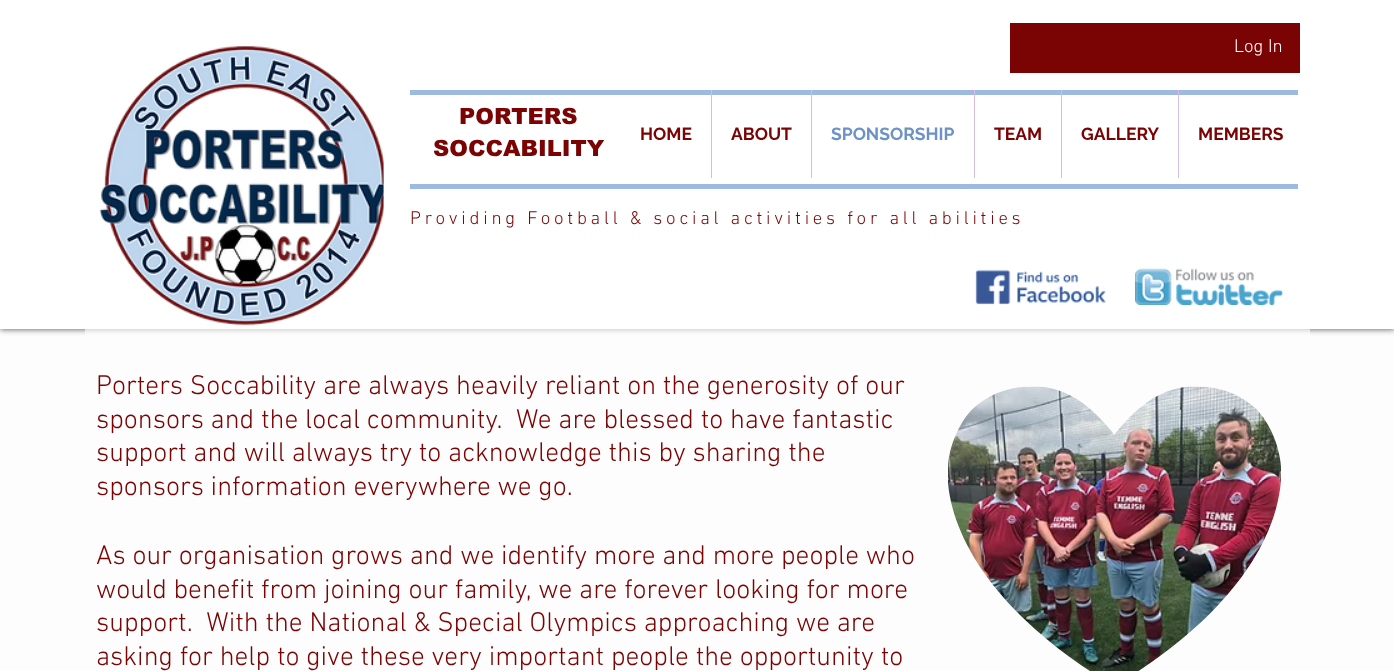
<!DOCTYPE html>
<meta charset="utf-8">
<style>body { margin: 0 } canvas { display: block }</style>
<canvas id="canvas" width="1394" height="671"></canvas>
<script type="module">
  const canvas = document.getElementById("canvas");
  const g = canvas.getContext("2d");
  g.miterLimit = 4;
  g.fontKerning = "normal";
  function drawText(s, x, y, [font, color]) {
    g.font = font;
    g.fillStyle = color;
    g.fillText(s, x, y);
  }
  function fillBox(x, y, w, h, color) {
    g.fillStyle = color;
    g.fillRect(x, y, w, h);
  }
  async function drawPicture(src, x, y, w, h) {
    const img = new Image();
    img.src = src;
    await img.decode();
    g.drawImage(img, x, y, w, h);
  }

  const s1 = ["300 18.75px 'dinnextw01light'", "#FFFFFF"];
  const s2 = ["900 22.5px arial", "#7A0303"];
  const s3 = ["bold 17.5px Raleway", "#7A0303"];
  const s4 = ["bold 17.5px Raleway", "#6C92C6"];
  const s5 = ["300 18.75px 'dinnextw01light'", "#7A0303"];
  const s6 = ["300 27.5px 'dinnextw01light'", "#7A0303"];

  fillBox(0, 0, 1394, 671, "#FEFDFD");
  g.fillStyle = "rgba(0, 0, 0, 0.7)";
  g.filter = "blur(3px)";
  g.beginPath();
  g.rect(0, 0, 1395, 329);
  g.fill();
  g.filter = "none";
  fillBox(0, 0, 1394, 329, "#FFFFFF");
  await drawPicture("pic1.png", 99, 46, 285, 280);
  fillBox(1010, 23, 290, 50, "#7A0303");
  drawText("Log In", 1234, 52, s1);
  fillBox(410, 90, 888, 5, "#9EBAE2");
  drawText("PORTERS", 459, 124, s2);
  drawText("SOCCABILITY", 433, 156, s2);
  drawText("HOME", 640, 140, s3);
  fillBox(711, 90, 1, 88, "#D8BDE2");
  drawText("ABOUT", 731, 140, s3);
  fillBox(811, 90, 1, 88, "#D8BDE2");
  drawText("SPONSORSHIP", 831, 140, s4);
  fillBox(974, 90, 1, 88, "#D8BDE2");
  drawText("TEAM", 994, 140, s3);
  fillBox(1061, 90, 1, 88, "#D8BDE2");
  drawText("GALLERY", 1081, 140, s3);
  fillBox(1178, 90, 1, 88, "#D8BDE2");
  drawText("MEMBERS", 1198, 140, s3);
  fillBox(410, 184, 888, 5, "#9EBAE2");
  g.letterSpacing = "3.75px";
  drawText("Providing Football & social activities for all abilities", 410, 224, s5);
  await drawPicture("pic2.png", 975, 269, 132, 36);
  await drawPicture("pic3.png", 1135, 268, 148, 37);
  fillBox(85, 329, 1225, 7, "rgba(255, 255, 255, 0.6)");
  g.letterSpacing = "0px";
  drawText("Porters Soccability are always heavily reliant on the generosity of our", 96, 394, s6);
  drawText("sponsors and the local community.  We are blessed to have fantastic", 96, 428, s6);
  drawText("support and will always try to acknowledge this by sharing the", 96, 461, s6);
  drawText("sponsors information everywhere we go.", 96, 495, s6);
  drawText("As our organisation grows and we identify more and more people who", 96, 564, s6);
  drawText("would benefit from joining our family, we are forever looking for more", 96, 598, s6);
  drawText("support.  With the National & Special Olympics approaching we are", 96, 631, s6);
  drawText("asking for help to give these very important people the opportunity to", 96, 665, s6);
  await drawPicture("pic4.png", 948, 386, 333, 285);
</script>
